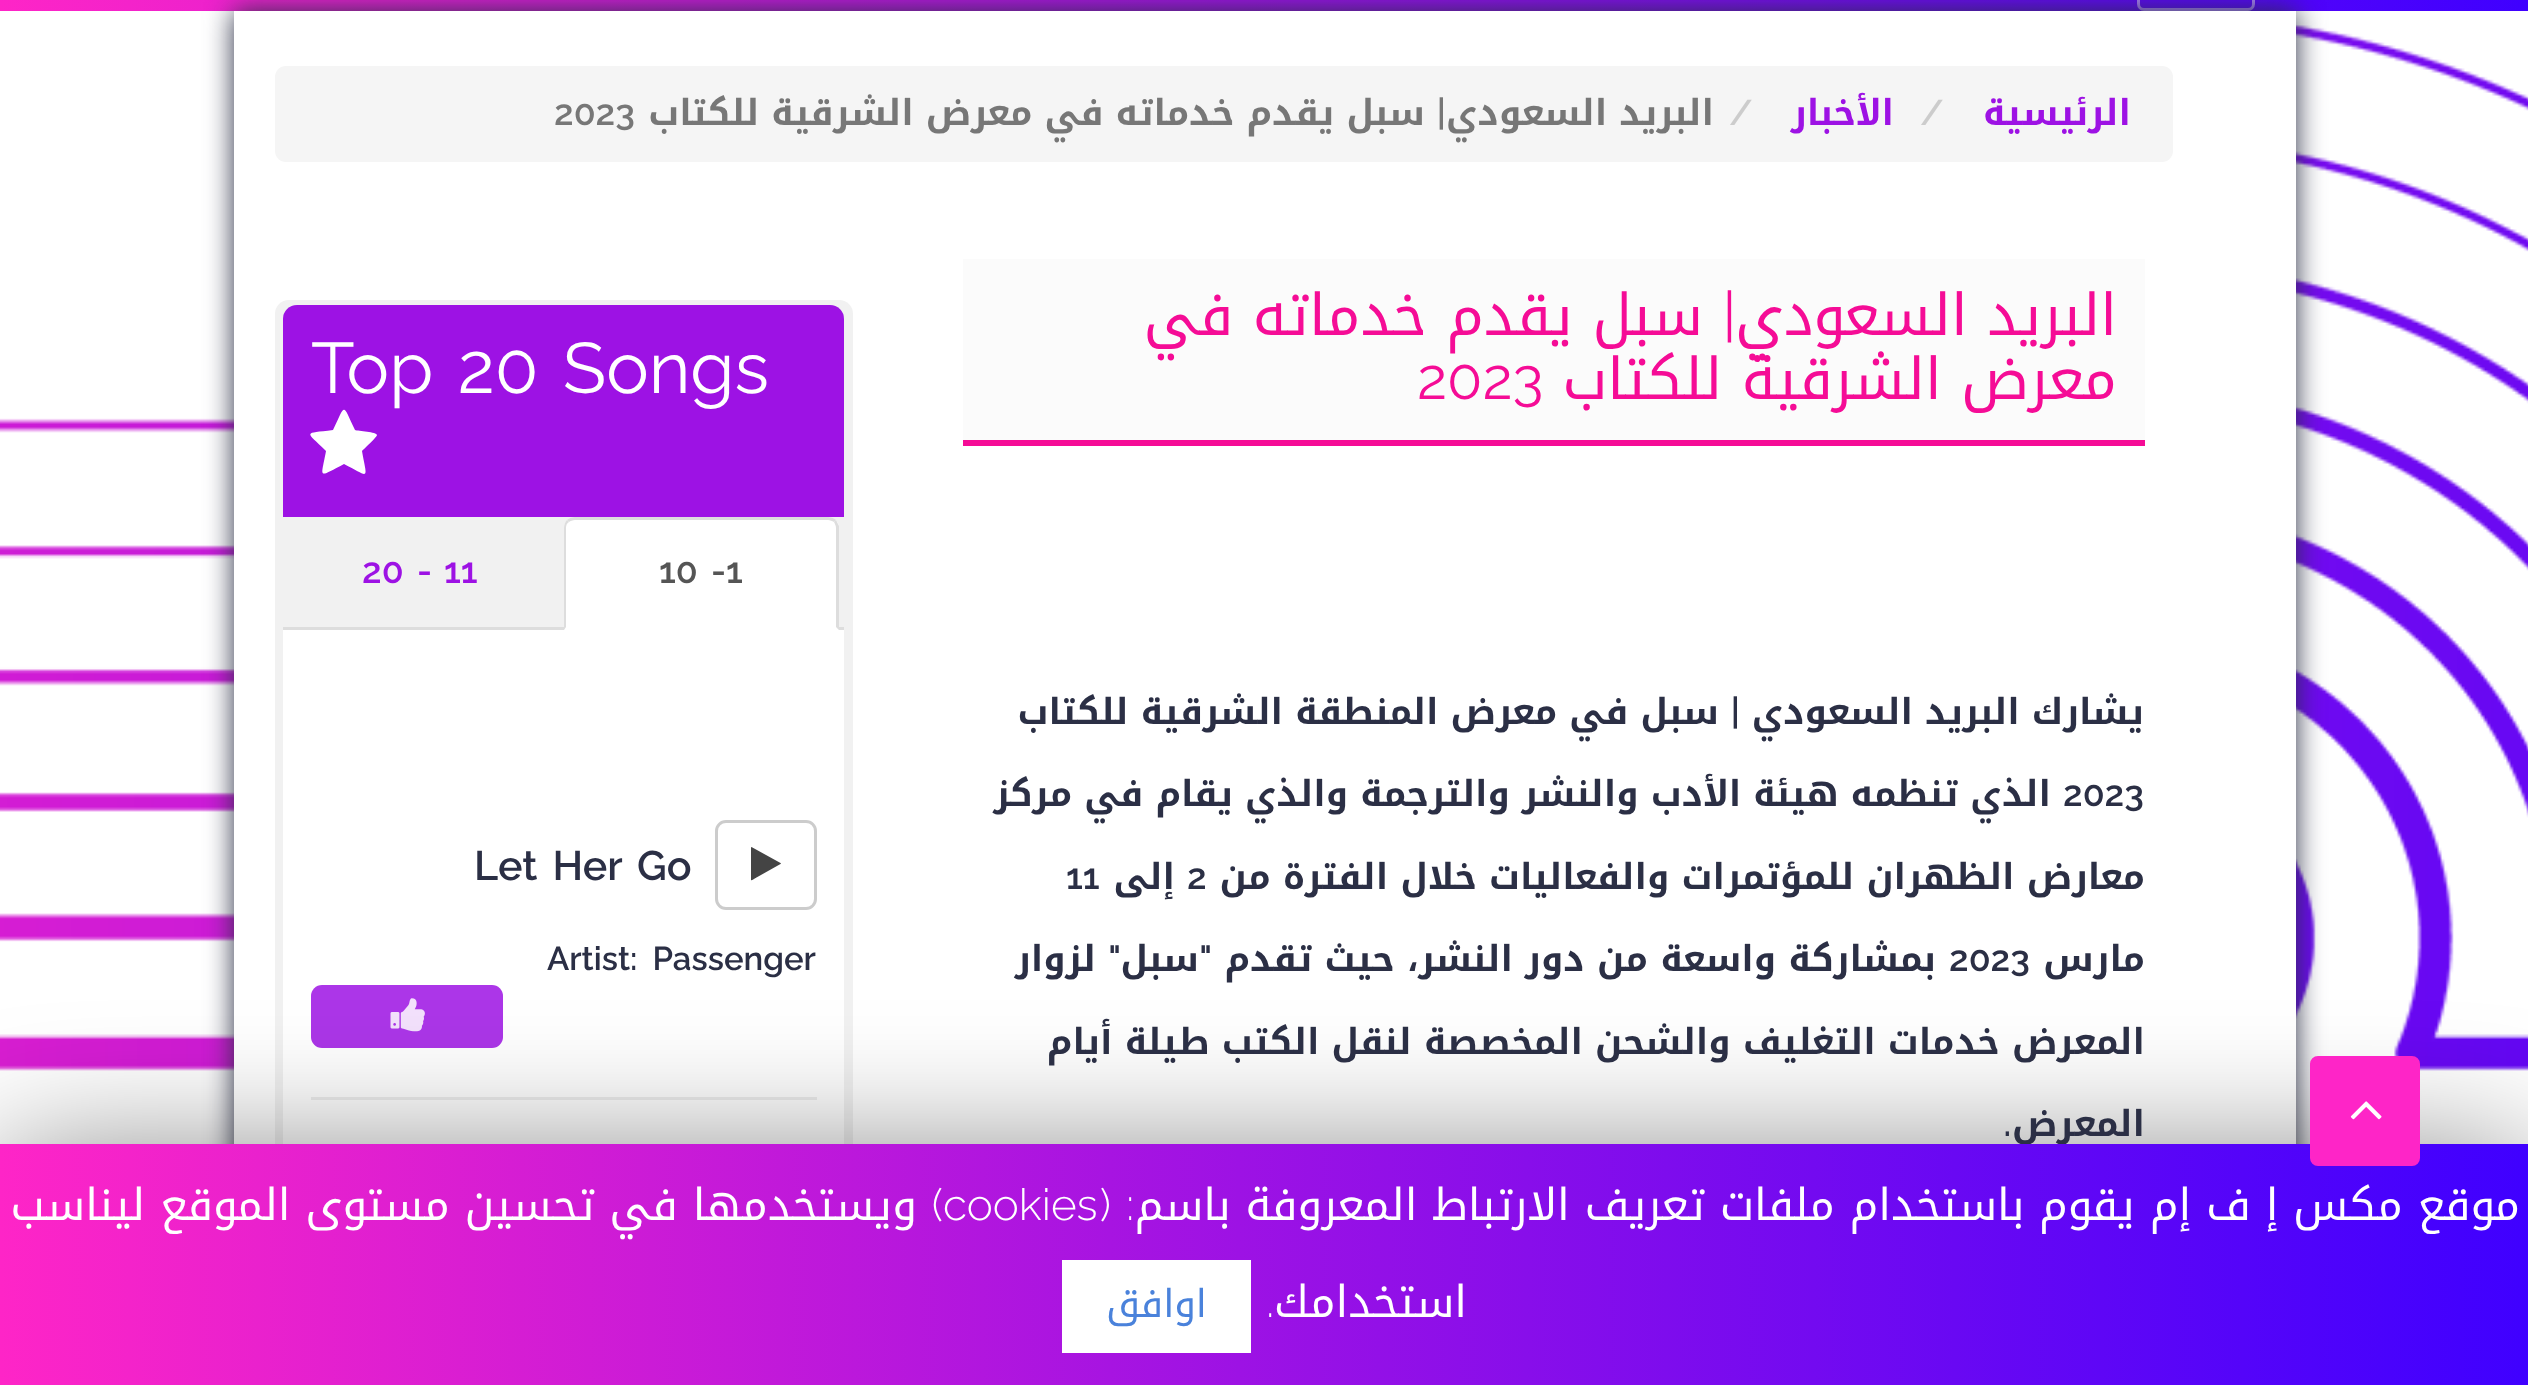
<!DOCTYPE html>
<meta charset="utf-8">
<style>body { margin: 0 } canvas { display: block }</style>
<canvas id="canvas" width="2528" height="1385"></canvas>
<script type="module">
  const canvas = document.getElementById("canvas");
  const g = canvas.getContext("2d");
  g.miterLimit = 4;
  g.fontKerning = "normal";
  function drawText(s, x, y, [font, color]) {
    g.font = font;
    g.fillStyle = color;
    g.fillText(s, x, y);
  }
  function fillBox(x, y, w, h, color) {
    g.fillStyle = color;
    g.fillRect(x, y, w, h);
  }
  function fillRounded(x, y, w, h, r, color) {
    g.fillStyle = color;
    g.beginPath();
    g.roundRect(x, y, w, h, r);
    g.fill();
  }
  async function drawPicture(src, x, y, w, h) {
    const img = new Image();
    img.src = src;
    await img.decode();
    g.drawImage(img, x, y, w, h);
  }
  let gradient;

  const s1 = ["bold 35.75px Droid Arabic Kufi", "#2B2F45"];
  const s2 = ["bold 35.75px Droid Arabic Kufi", "#9D12E4"];
  const s3 = ["600 35.75px Raleway", "#CCCCCC"];
  const s4 = ["bold 35.75px Droid Arabic Kufi", "#777777"];
  const s5 = ["600 35.75px Raleway", "#777777"];
  const s6 = ["57.75px Droid Arabic Kufi", "#F50C96"];
  const s7 = ["57.75px Raleway", "#F50C96"];
  const s8 = ["600 35.75px Raleway", "#2B2F45"];
  const s9 = ["71.5px Raleway", "#FFFFFF"];
  const s10 = ["600 35.75px Raleway", "#555555"];
  const s11 = ["600 35.75px Raleway", "#9D12E4"];
  const s12 = ["600 41.25px Raleway", "#2B2F45"];
  const s13 = ["600 33px Raleway", "#2B2F45"];
  const s14 = ["44px Droid Arabic Kufi", "#FFFFFF"];
  const s15 = ["300 44px Raleway", "#FFFFFF"];
  const s16 = ["38.5px Droid Arabic Kufi", "#4A82DB"];

  fillBox(0, 0, 2528, 1385, "#FFFFFF");
  await drawPicture("pic1.png", 0, 24, 2528, 1047);
  gradient = g.createLinearGradient(0, -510, 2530, -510);
  gradient.addColorStop(0, "#FE25C7");
  gradient.addColorStop(0.49, "#9D12E4");
  gradient.addColorStop(1, "#3F00FF");
  g.fillStyle = gradient;
  g.fillRect(0, 0, 2528, 11);
  g.beginPath();
  g.roundRect(2138.5, -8.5, 115, 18, 5.5);
  g.strokeStyle = "rgba(255, 255, 255, 0.5)";
  g.lineWidth = 3;
  g.stroke();
  g.fillStyle = "#2B2F45";
  g.filter = "blur(14px)";
  g.beginPath();
  g.rect(234, 11, 2062, 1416);
  g.fill();
  g.filter = "none";
  fillBox(234, 11, 2062, 1133, "#FFFFFF");
  fillRounded(275, 300, 578, 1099, 14, "#F1F1F1");
  fillBox(283, 630, 561, 514, "#FFFFFF");
  fillBox(311, 1097, 506, 3, "#EEEEEE");
  fillRounded(311, 985, 192, 63, 11, "#AC36E8");
  await drawPicture("pic3.png", 390, 998, 35, 34);
  g.fillStyle = "rgba(0, 0, 0, 0.5)";
  g.filter = "blur(69px)";
  g.beginPath();
  g.rect(0, 1158, 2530, 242);
  g.fill();
  g.filter = "none";
  g.direction = "rtl";
  drawText("المعرض", 2145, 1136, s1);
  gradient = g.createLinearGradient(0, 1265, 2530, 1265);
  gradient.addColorStop(0, "#FE25C7");
  gradient.addColorStop(0.49, "#9D12E4");
  gradient.addColorStop(1, "#3F00FF");
  g.fillStyle = gradient;
  g.fillRect(0, 1144, 2528, 241);
  g.fillStyle = "#FE25C7";
  g.beginPath();
  g.roundRect(2311.5, 1057.5, 107, 107, 6.5);
  g.fill();
  g.strokeStyle = "#FE25C7";
  g.stroke();
  await drawPicture("pic2.png", 2350, 1101, 32, 19);
  fillRounded(275, 66, 1898, 96, 11, "#F5F5F5");
  drawText("الرئيسية", 2131, 125, s2);
  g.direction = "ltr";
  drawText("/", 1920, 125, s3);
  g.direction = "rtl";
  drawText("الأخبار", 1894, 125, s2);
  g.direction = "ltr";
  drawText("/", 1729, 125, s3);
  g.direction = "rtl";
  drawText("البريد السعودي", 1714, 125, s4);
  drawText("|", 1446, 125, s5);
  drawText("سبل يقدم خدماته في معرض الشرقية للكتاب", 1425, 125, s4);
  g.direction = "ltr";
  drawText("2023", 554, 125, s5);
  fillBox(963, 259, 1182, 181, "#FBFBFB");
  fillBox(963, 440, 1182, 6, "#F50C96");
  g.direction = "rtl";
  drawText("البريد السعودي", 2117, 335, s6);
  drawText("|", 1736, 335, s7);
  drawText("سبل يقدم خدماته في", 1703, 335, s6);
  drawText("معرض الشرقية للكتاب", 2117, 399, s6);
  g.direction = "ltr";
  drawText("2023", 1417, 399, s7);
  g.direction = "rtl";
  drawText("يشارك البريد السعودي", 2144, 724, s1);
  drawText("|", 1740, 724, s8);
  drawText("سبل في معرض المنطقة الشرقية للكتاب", 1719, 724, s1);
  g.direction = "ltr";
  drawText("2023", 2063, 806, s8);
  g.direction = "rtl";
  drawText("الذي تنظمه هيئة الأدب والنشر والترجمة والذي يقام في مركز", 2051, 806, s1);
  drawText("معارض الظهران للمؤتمرات والفعاليات خلال الفترة من", 2145, 889, s1);
  g.direction = "ltr";
  drawText("2", 1187, 889, s8);
  g.direction = "rtl";
  drawText("إلى", 1175, 889, s1);
  g.direction = "ltr";
  drawText("11", 1066, 889, s8);
  g.direction = "rtl";
  drawText("مارس", 2145, 971, s1);
  g.direction = "ltr";
  drawText("2023", 1949, 971, s8);
  g.wordSpacing = "0.25px";
  g.direction = "rtl";
  drawText("بمشاركة واسعة من دور النشر، حيث تقدم", 1936, 971, s1);
  g.wordSpacing = "0px";
  drawText("\"", 1212, 971, s8);
  drawText("سبل", 1199, 971, s1);
  drawText("\"", 1121, 971, s8);
  drawText("لزوار", 1096, 971, s1);
  drawText("المعرض خدمات التغليف والشحن المخصصة لنقل الكتب طيلة أيام", 2145, 1054, s1);
  drawText(".", 2011, 1136, s8);
  g.fillStyle = "#9D12E4";
  g.beginPath();
  g.roundRect(283, 305, 561, 212, [14, 14, 0, 0]);
  g.fill();
  g.wordSpacing = "6px";
  g.direction = "ltr";
  drawText("Top 20 Songs", 311, 393, s9);
  g.beginPath();
  g.moveTo(377, 435);
  g.bezierCurveTo(377, 437, 364, 449, 362, 451);
  g.bezierCurveTo(367, 480, 371, 478, 344, 464);
  g.bezierCurveTo(317, 478, 321, 479, 326, 451);
  g.bezierCurveTo(305, 430, 303, 434, 333, 430);
  g.bezierCurveTo(346, 403, 342, 403, 355, 430);
  g.bezierCurveTo(358, 431, 377, 432, 377, 435);
  g.closePath();
  g.fill();
  fillBox(283, 627, 561, 3, "#DDDDDD");
  g.fillStyle = "#FFFFFF";
  g.beginPath();
  g.roundRect(564, 517, 275, 113, [11, 11, 0, 0]);
  g.fill();
  g.fillStyle = "#DDDDDD";
  g.beginPath();
  g.moveTo(575, 517);
  g.bezierCurveTo(572, 517, 569, 518, 567, 520);
  g.lineTo(569, 522);
  g.bezierCurveTo(570, 521, 573, 520, 575, 520);
  g.lineTo(828, 520);
  g.bezierCurveTo(830, 520, 832, 521, 834, 522);
  g.lineTo(836, 520);
  g.bezierCurveTo(834, 518, 831, 517, 828, 517);
  g.closePath();
  g.fill();
  g.beginPath();
  g.moveTo(836, 520);
  g.bezierCurveTo(837, 522, 838, 524, 839, 526);
  g.lineTo(839, 630);
  g.lineTo(836, 627);
  g.lineTo(836, 528);
  g.bezierCurveTo(836, 526, 835, 524, 834, 522);
  g.closePath();
  g.fill();
  g.beginPath();
  g.moveTo(567, 520);
  g.bezierCurveTo(565, 522, 564, 525, 564, 528);
  g.lineTo(564, 630);
  g.lineTo(566, 627);
  g.lineTo(566, 528);
  g.bezierCurveTo(566, 525, 567, 523, 569, 522);
  g.closePath();
  g.fill();
  g.wordSpacing = "0px";
  drawText("-1", 711, 583, s10);
  drawText("10", 659, 583, s10);
  drawText("11", 444, 583, s11);
  drawText("-", 417, 583, s11);
  drawText("20", 362, 583, s11);
  g.beginPath();
  g.roundRect(716.5, 821.5, 99, 87, 9.5);
  g.strokeStyle = "#CCCCCC";
  g.stroke();
  g.fillStyle = "#444444";
  g.beginPath();
  g.moveTo(780.5, 864);
  g.lineTo(756.5, 877.5);
  g.bezierCurveTo(756, 877.5, 752, 881, 751, 880);
  g.lineTo(751, 847.5);
  g.lineTo(751.5, 847);
  g.lineTo(780.5, 863);
  g.lineTo(781, 863.5);
  g.closePath();
  g.fill();
  g.wordSpacing = "5px";
  drawText("Let Her Go", 474, 880, s12);
  g.wordSpacing = "7px";
  drawText("Artist: Passenger", 547, 970, s13);
  g.wordSpacing = "0px";
  g.direction = "rtl";
  drawText("موقع مكس إ ف إم يقوم باستخدام ملفات تعريف الارتباط المعروفة باسم", 2520, 1220, s14);
  drawText(":", 1134, 1220, s15);
  drawText("(", 1111, 1220, s15);
  g.direction = "ltr";
  drawText("cookies", 943, 1220, s15);
  g.direction = "rtl";
  drawText(")", 943, 1220, s15);
  drawText("ويستخدمها في تحسين مستوى الموقع ليناسب", 917, 1220, s14);
  drawText("استخدامك", 1467, 1317, s14);
  drawText(".", 1274, 1317, s15);
  fillBox(1062, 1260, 189, 93, "#FFFFFF");
  drawText("اوافق", 1207, 1317, s16);
</script>
